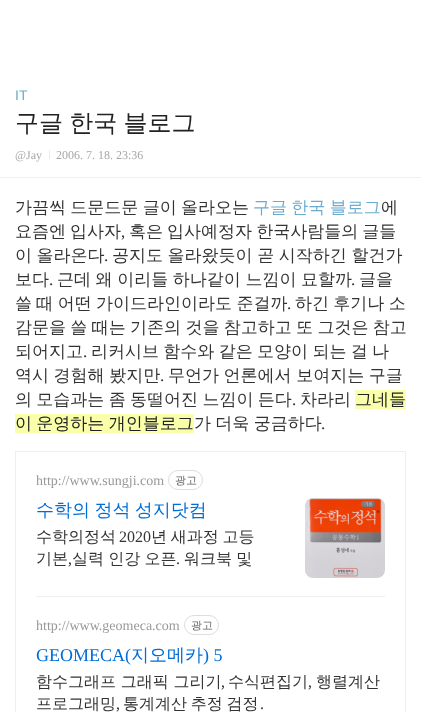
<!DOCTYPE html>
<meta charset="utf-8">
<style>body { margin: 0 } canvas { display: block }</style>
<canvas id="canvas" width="421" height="712"></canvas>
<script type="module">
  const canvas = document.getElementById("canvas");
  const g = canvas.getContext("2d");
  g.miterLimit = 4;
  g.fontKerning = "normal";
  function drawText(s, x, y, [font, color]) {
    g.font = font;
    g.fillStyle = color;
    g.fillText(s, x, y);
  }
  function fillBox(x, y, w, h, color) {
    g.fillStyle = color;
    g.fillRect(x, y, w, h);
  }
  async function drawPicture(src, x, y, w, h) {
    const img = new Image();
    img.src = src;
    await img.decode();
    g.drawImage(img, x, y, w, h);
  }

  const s1 = ["14px Liberation Sans", "#6BACCE"];
  const s2 = ["500 24px WenQuanYi Zen Hei", "#222222"];
  const s3 = ["12px Liberation Serif", "#A7A7A7"];
  const s4 = ["500 17px WenQuanYi Zen Hei", "#333333"];
  const s5 = ["500 17px WenQuanYi Zen Hei", "#6BACCE"];
  const s6 = ["17px Liberation Serif", "#333333"];
  const s7 = ["500 17px WenQuanYi Zen Hei", "#222222"];
  const s8 = ["14px Liberation Serif", "#999999"];
  const s9 = ["500 11px WenQuanYi Zen Hei", "#666666"];
  const s10 = ["500 18px WenQuanYi Zen Hei", "#016DD7"];
  const s11 = ["500 16px WenQuanYi Zen Hei", "#333333"];
  const s12 = ["16px Liberation Serif", "#333333"];
  const s13 = ["18px Liberation Serif", "#016DD7"];

  fillBox(0, 0, 421, 712, "#FFFFFF");
  fillBox(0, 177, 421, 1, "#EFEFEF");
  drawText("IT", 15, 100, s1);
  g.wordSpacing = "-1px";
  drawText("구글 한국 블로그", 15, 131, s2);
  g.wordSpacing = "0px";
  drawText("@Jay", 15, 159, s3);
  fillBox(49, 150, 1, 9, "#EBEBEB");
  drawText("2006. 7. 18. 23:36", 56, 159, s3);
  g.wordSpacing = "-0.75px";
  drawText("가끔씩 드문드문 글이 올라오는", 15, 213, s4);
  drawText("구글 한국 블로그", 253, 213, s5);
  g.wordSpacing = "0px";
  drawText("에", 381, 213, s4);
  g.wordSpacing = "-1px";
  drawText("요즘엔 입사자", 15, 237, s4);
  g.wordSpacing = "0px";
  drawText(",", 121, 237, s6);
  g.wordSpacing = "-1px";
  drawText("혹은 입사예정자 한국사람들의 글들", 129, 237, s4);
  g.wordSpacing = "-0.5px";
  drawText("이 올라온다", 15, 261, s4);
  g.wordSpacing = "0px";
  drawText(".", 104, 261, s6);
  g.wordSpacing = "-0.5px";
  drawText("공지도 올라왔듯이 곧 시작하긴 할건가", 112, 261, s4);
  g.wordSpacing = "0px";
  drawText("보다", 15, 285, s4);
  drawText(".", 49, 285, s6);
  g.wordSpacing = "-0.5px";
  drawText("근데 왜 이리들 하나같이 느낌이 묘할까", 57, 285, s4);
  g.wordSpacing = "0px";
  drawText(".", 351, 285, s6);
  drawText("글을", 359, 285, s4);
  g.wordSpacing = "-0.75px";
  drawText("쓸 때 어떤 가이드라인이라도 준걸까", 15, 309, s4);
  g.wordSpacing = "0px";
  drawText(".", 287, 309, s6);
  g.wordSpacing = "-0.75px";
  drawText("하긴 후기나 소", 295, 309, s4);
  drawText("감문을 쓸 때는 기존의 것을 참고하고 또 그것은 참고", 15, 333, s4);
  g.wordSpacing = "0px";
  drawText("되어지고", 15, 357, s4);
  drawText(".", 83, 357, s6);
  g.wordSpacing = "-0.75px";
  drawText("리커시브 함수와 같은 모양이 되는 걸 나", 91, 357, s4);
  g.wordSpacing = "-0.5px";
  drawText("역시 경험해 봤지만", 15, 381, s4);
  g.wordSpacing = "0px";
  drawText(".", 160, 381, s6);
  g.wordSpacing = "-0.5px";
  drawText("무언가 언론에서 보여지는 구글", 168, 381, s4);
  g.wordSpacing = "-0.75px";
  drawText("의 모습과는 좀 동떨어진 느낌이 든다", 15, 405, s4);
  g.wordSpacing = "0px";
  drawText(".", 292, 405, s6);
  drawText("차라리", 300, 405, s4);
  fillBox(355, 390, 51, 19, "#FAFFA9");
  drawText("그네들", 355, 405, s7);
  fillBox(15, 414, 179, 19, "#FAFFA9");
  g.wordSpacing = "-0.75px";
  drawText("이 운영하는 개인블로그", 15, 429, s7);
  drawText("가 더욱 궁금하다", 194, 429, s4);
  g.wordSpacing = "0px";
  drawText(".", 321, 429, s6);
  g.strokeStyle = "#EEEEEE";
  g.strokeRect(15.5, 451.5, 390, 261);
  drawText("http://www.sungji.com", 36, 485, s8);
  g.beginPath();
  g.roundRect(168.5, 470.5, 34, 19, 9.5);
  g.strokeStyle = "#DDDDDD";
  g.stroke();
  drawText("광고", 175, 484, s9);
  g.wordSpacing = "-1px";
  drawText("수학의 정석 성지닷컴", 36, 516, s10);
  g.wordSpacing = "0px";
  drawText("수학의정석", 36, 542, s11);
  drawText("2020", 119, 542, s12);
  g.wordSpacing = "-1px";
  drawText("년 새과정 고등", 151, 542, s11);
  g.wordSpacing = "0px";
  drawText("기본", 36, 564, s11);
  drawText(",", 68, 564, s12);
  g.wordSpacing = "-0.5px";
  drawText("실력 인강 오픈", 72, 564, s11);
  g.wordSpacing = "0px";
  drawText(".", 176, 564, s12);
  g.wordSpacing = "-0.5px";
  drawText("워크북 및", 184, 564, s11);
  await drawPicture("pic1.png", 305, 498, 80, 80);
  fillBox(36, 596, 349, 1, "#EEEEEE");
  g.wordSpacing = "0px";
  drawText("http://www.geomeca.com", 36, 630, s8);
  g.beginPath();
  g.roundRect(184.5, 615.5, 34, 19, 9.5);
  g.stroke();
  drawText("광고", 191, 629, s9);
  drawText("GEOMECA(", 36, 661, s13);
  drawText("지오메카", 131, 661, s10);
  drawText(") 5", 203, 661, s13);
  drawText("함수그래프 그래픽 그리기", 36, 687, s11);
  drawText(",", 221, 687, s12);
  drawText("수식편집기", 228, 687, s11);
  drawText(",", 308, 687, s12);
  drawText("행렬계산", 316, 687, s11);
  drawText("프로그래밍", 36, 709, s11);
  drawText(",", 116, 709, s12);
  g.wordSpacing = "-1px";
  drawText("통계계산 추정 검정", 123, 709, s11);
  g.wordSpacing = "0px";
  drawText(".", 260, 709, s12);
</script>
